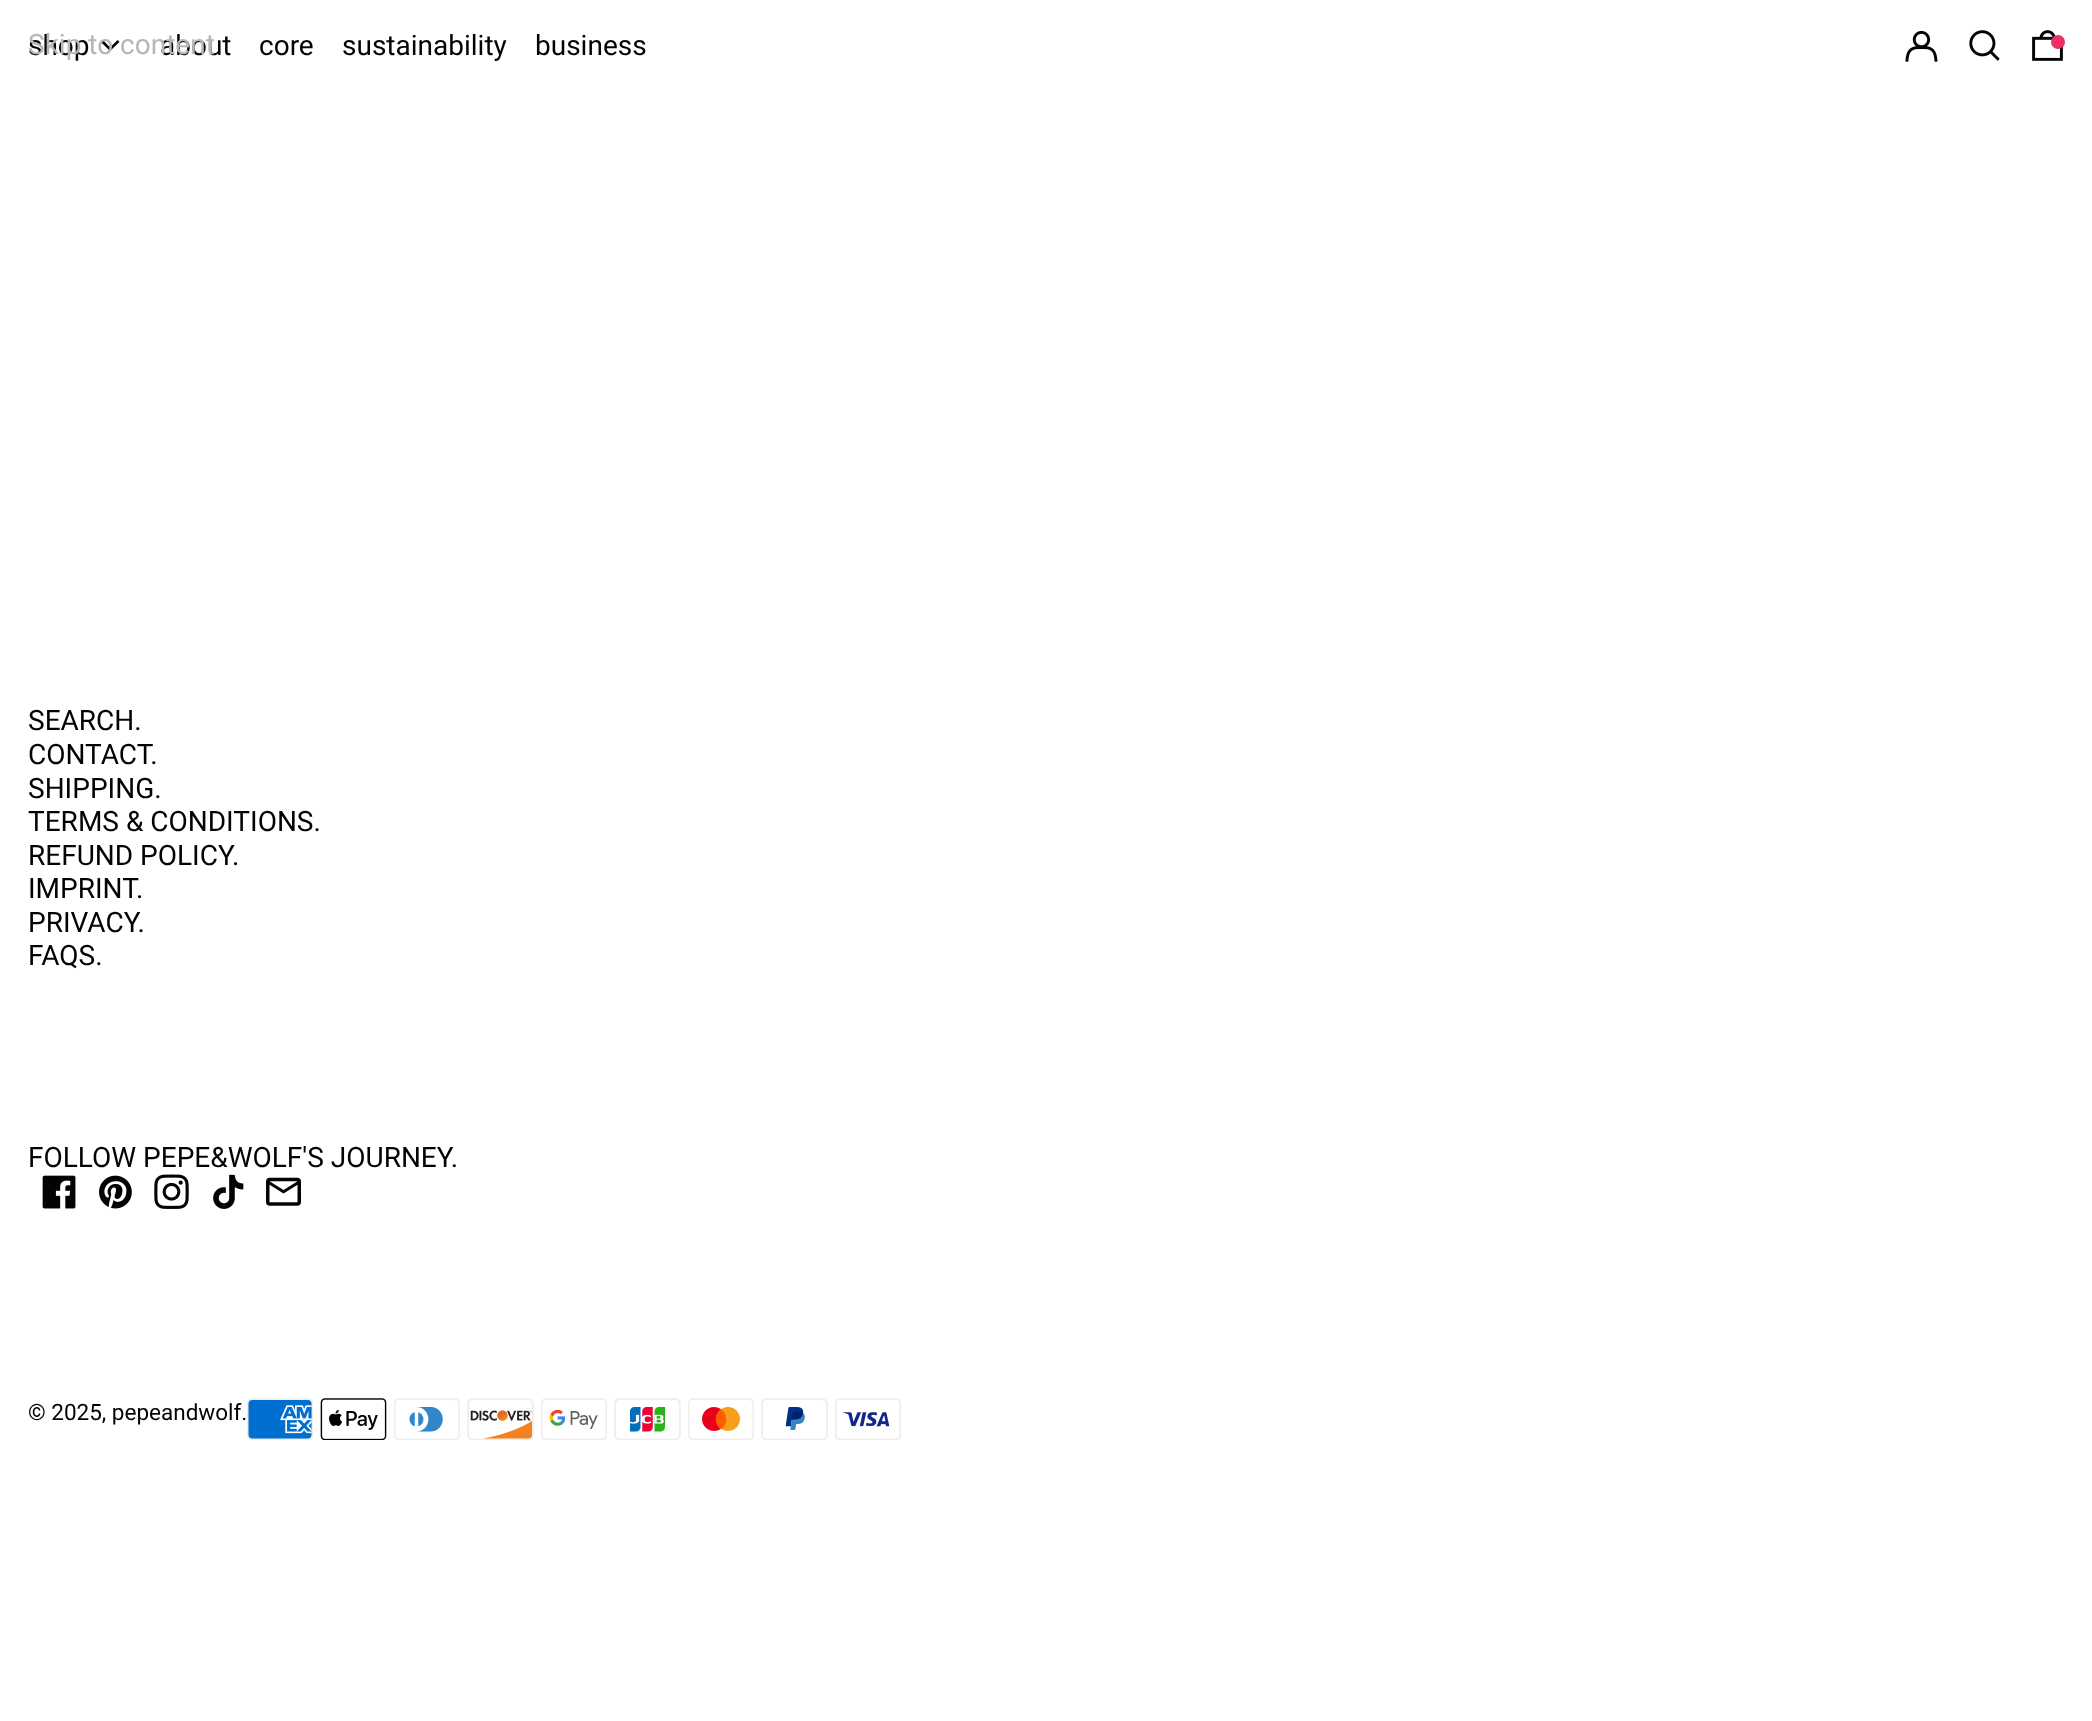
<!DOCTYPE html>
<meta charset="utf-8">
<style>body { margin: 0 } canvas { display: block }</style>
<canvas id="canvas" width="2092" height="1721"></canvas>
<script type="module">
  const canvas = document.getElementById("canvas");
  const g = canvas.getContext("2d");
  g.miterLimit = 4;
  g.fontKerning = "normal";
  function drawText(s, x, y, [font, color]) {
    g.font = font;
    g.fillStyle = color;
    g.fillText(s, x, y);
  }
  function fillBox(x, y, w, h, color) {
    g.fillStyle = color;
    g.fillRect(x, y, w, h);
  }
  async function drawPicture(src, x, y, w, h) {
    const img = new Image();
    img.src = src;
    await img.decode();
    g.drawImage(img, x, y, w, h);
  }

  const s1 = ["28px Roboto", "#030303"];
  const s2 = ["28px Roboto", "#B6B6B6"];
  const s3 = ["22.5px Roboto", "#030303"];

  fillBox(0, 0, 2092, 1721, "#FFFFFF");
  drawText("shop", 28, 55, s1);
  g.beginPath();
  g.moveTo(110, 51);
  g.lineTo(101, 42);
  g.lineTo(103, 40);
  g.lineTo(110, 47.5);
  g.lineTo(117.5, 40);
  g.lineTo(119.5, 42);
  g.closePath();
  g.fill("evenodd");
  drawText("about", 160, 55, s1);
  drawText("Skip to content", 28, 54, s2);
  drawText("core", 259, 55, s1);
  drawText("sustainability", 342, 55, s1);
  drawText("business", 535, 55, s1);
  await drawPicture("pic1.png", 1905, 30, 33, 32);
  await drawPicture("pic2.png", 1969, 30, 31, 31);
  await drawPicture("pic3.png", 2032, 30, 31, 31);
  g.fillStyle = "#EB3163";
  g.beginPath();
  g.arc(2058, 42, 7, 0, Math.PI * 2);
  g.fill();
  drawText("SEARCH.", 28, 730, s1);
  drawText("CONTACT.", 28, 764, s1);
  drawText("SHIPPING.", 28, 798, s1);
  drawText("TERMS & CONDITIONS.", 28, 831, s1);
  drawText("REFUND POLICY.", 28, 865, s1);
  drawText("IMPRINT.", 28, 898, s1);
  drawText("PRIVACY.", 28, 932, s1);
  drawText("FAQS.", 28, 965, s1);
  drawText("FOLLOW PEPE&WOLF'S JOURNEY.", 28, 1167, s1);
  await drawPicture("pic4.png", 42, 1175, 34, 34);
  await drawPicture("pic5.png", 99, 1175, 33, 34);
  await drawPicture("pic6.png", 154, 1174, 35, 35);
  await drawPicture("pic7.png", 213, 1174, 31, 35);
  await drawPicture("pic8.png", 266, 1177, 35, 29);
  drawText("© 2025, pepeandwolf.", 28, 1420, s3);
  await drawPicture("pic9.png", 247, 1398, 66, 42);
  await drawPicture("pic10.png", 320, 1398, 67, 42);
  await drawPicture("pic11.png", 394, 1398, 66, 42);
  await drawPicture("pic12.png", 467, 1398, 67, 42);
  await drawPicture("pic13.png", 541, 1398, 66, 42);
  await drawPicture("pic14.png", 614, 1398, 67, 42);
  await drawPicture("pic15.png", 688, 1398, 66, 42);
  await drawPicture("pic16.png", 761, 1398, 67, 42);
  await drawPicture("pic17.png", 835, 1398, 66, 42);
</script>
